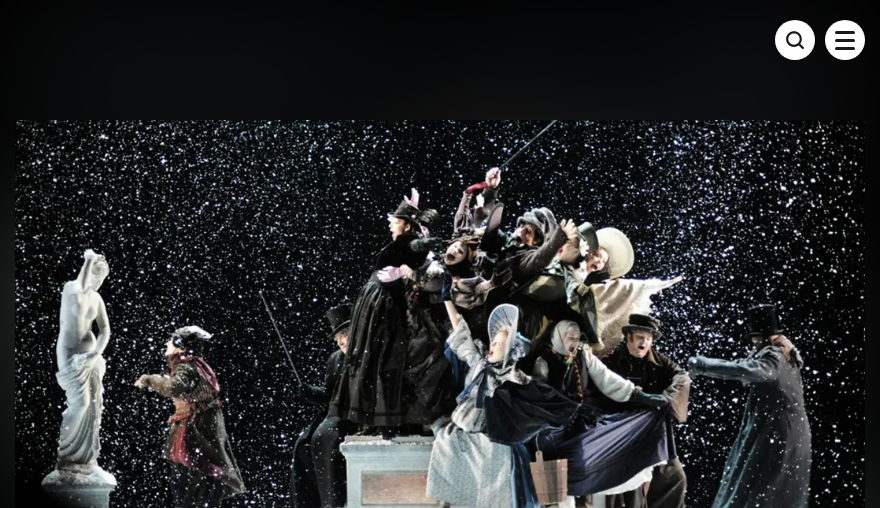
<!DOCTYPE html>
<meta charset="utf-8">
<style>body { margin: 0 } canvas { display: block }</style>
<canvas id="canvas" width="880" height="508"></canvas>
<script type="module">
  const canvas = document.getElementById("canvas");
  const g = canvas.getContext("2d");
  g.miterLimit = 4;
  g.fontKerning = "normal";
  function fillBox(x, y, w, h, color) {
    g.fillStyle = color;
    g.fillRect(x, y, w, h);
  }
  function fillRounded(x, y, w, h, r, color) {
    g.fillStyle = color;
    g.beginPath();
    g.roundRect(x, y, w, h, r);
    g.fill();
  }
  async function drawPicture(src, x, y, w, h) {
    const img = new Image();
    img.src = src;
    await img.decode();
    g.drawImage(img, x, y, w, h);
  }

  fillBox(0, 0, 880, 508, "#000000");
  await drawPicture("pic1.png", 0, 0, 880, 508);
  await drawPicture("pic2.png", 15, 120, 850, 388);
  g.fillStyle = "#FFFFFF";
  g.beginPath();
  g.arc(795, 40, 20, 0, Math.PI * 2);
  g.fill();
  await drawPicture("pic3.png", 786, 31, 18, 19);
  g.beginPath();
  g.arc(845, 40, 20, 0, Math.PI * 2);
  g.fill();
  fillRounded(835, 31, 20, 3, 1.5, "#1A1A1A");
  fillRounded(835, 39, 20, 3, 1.5, "#1A1A1A");
  fillRounded(835, 47, 20, 3, 1.5, "#1A1A1A");
</script>
